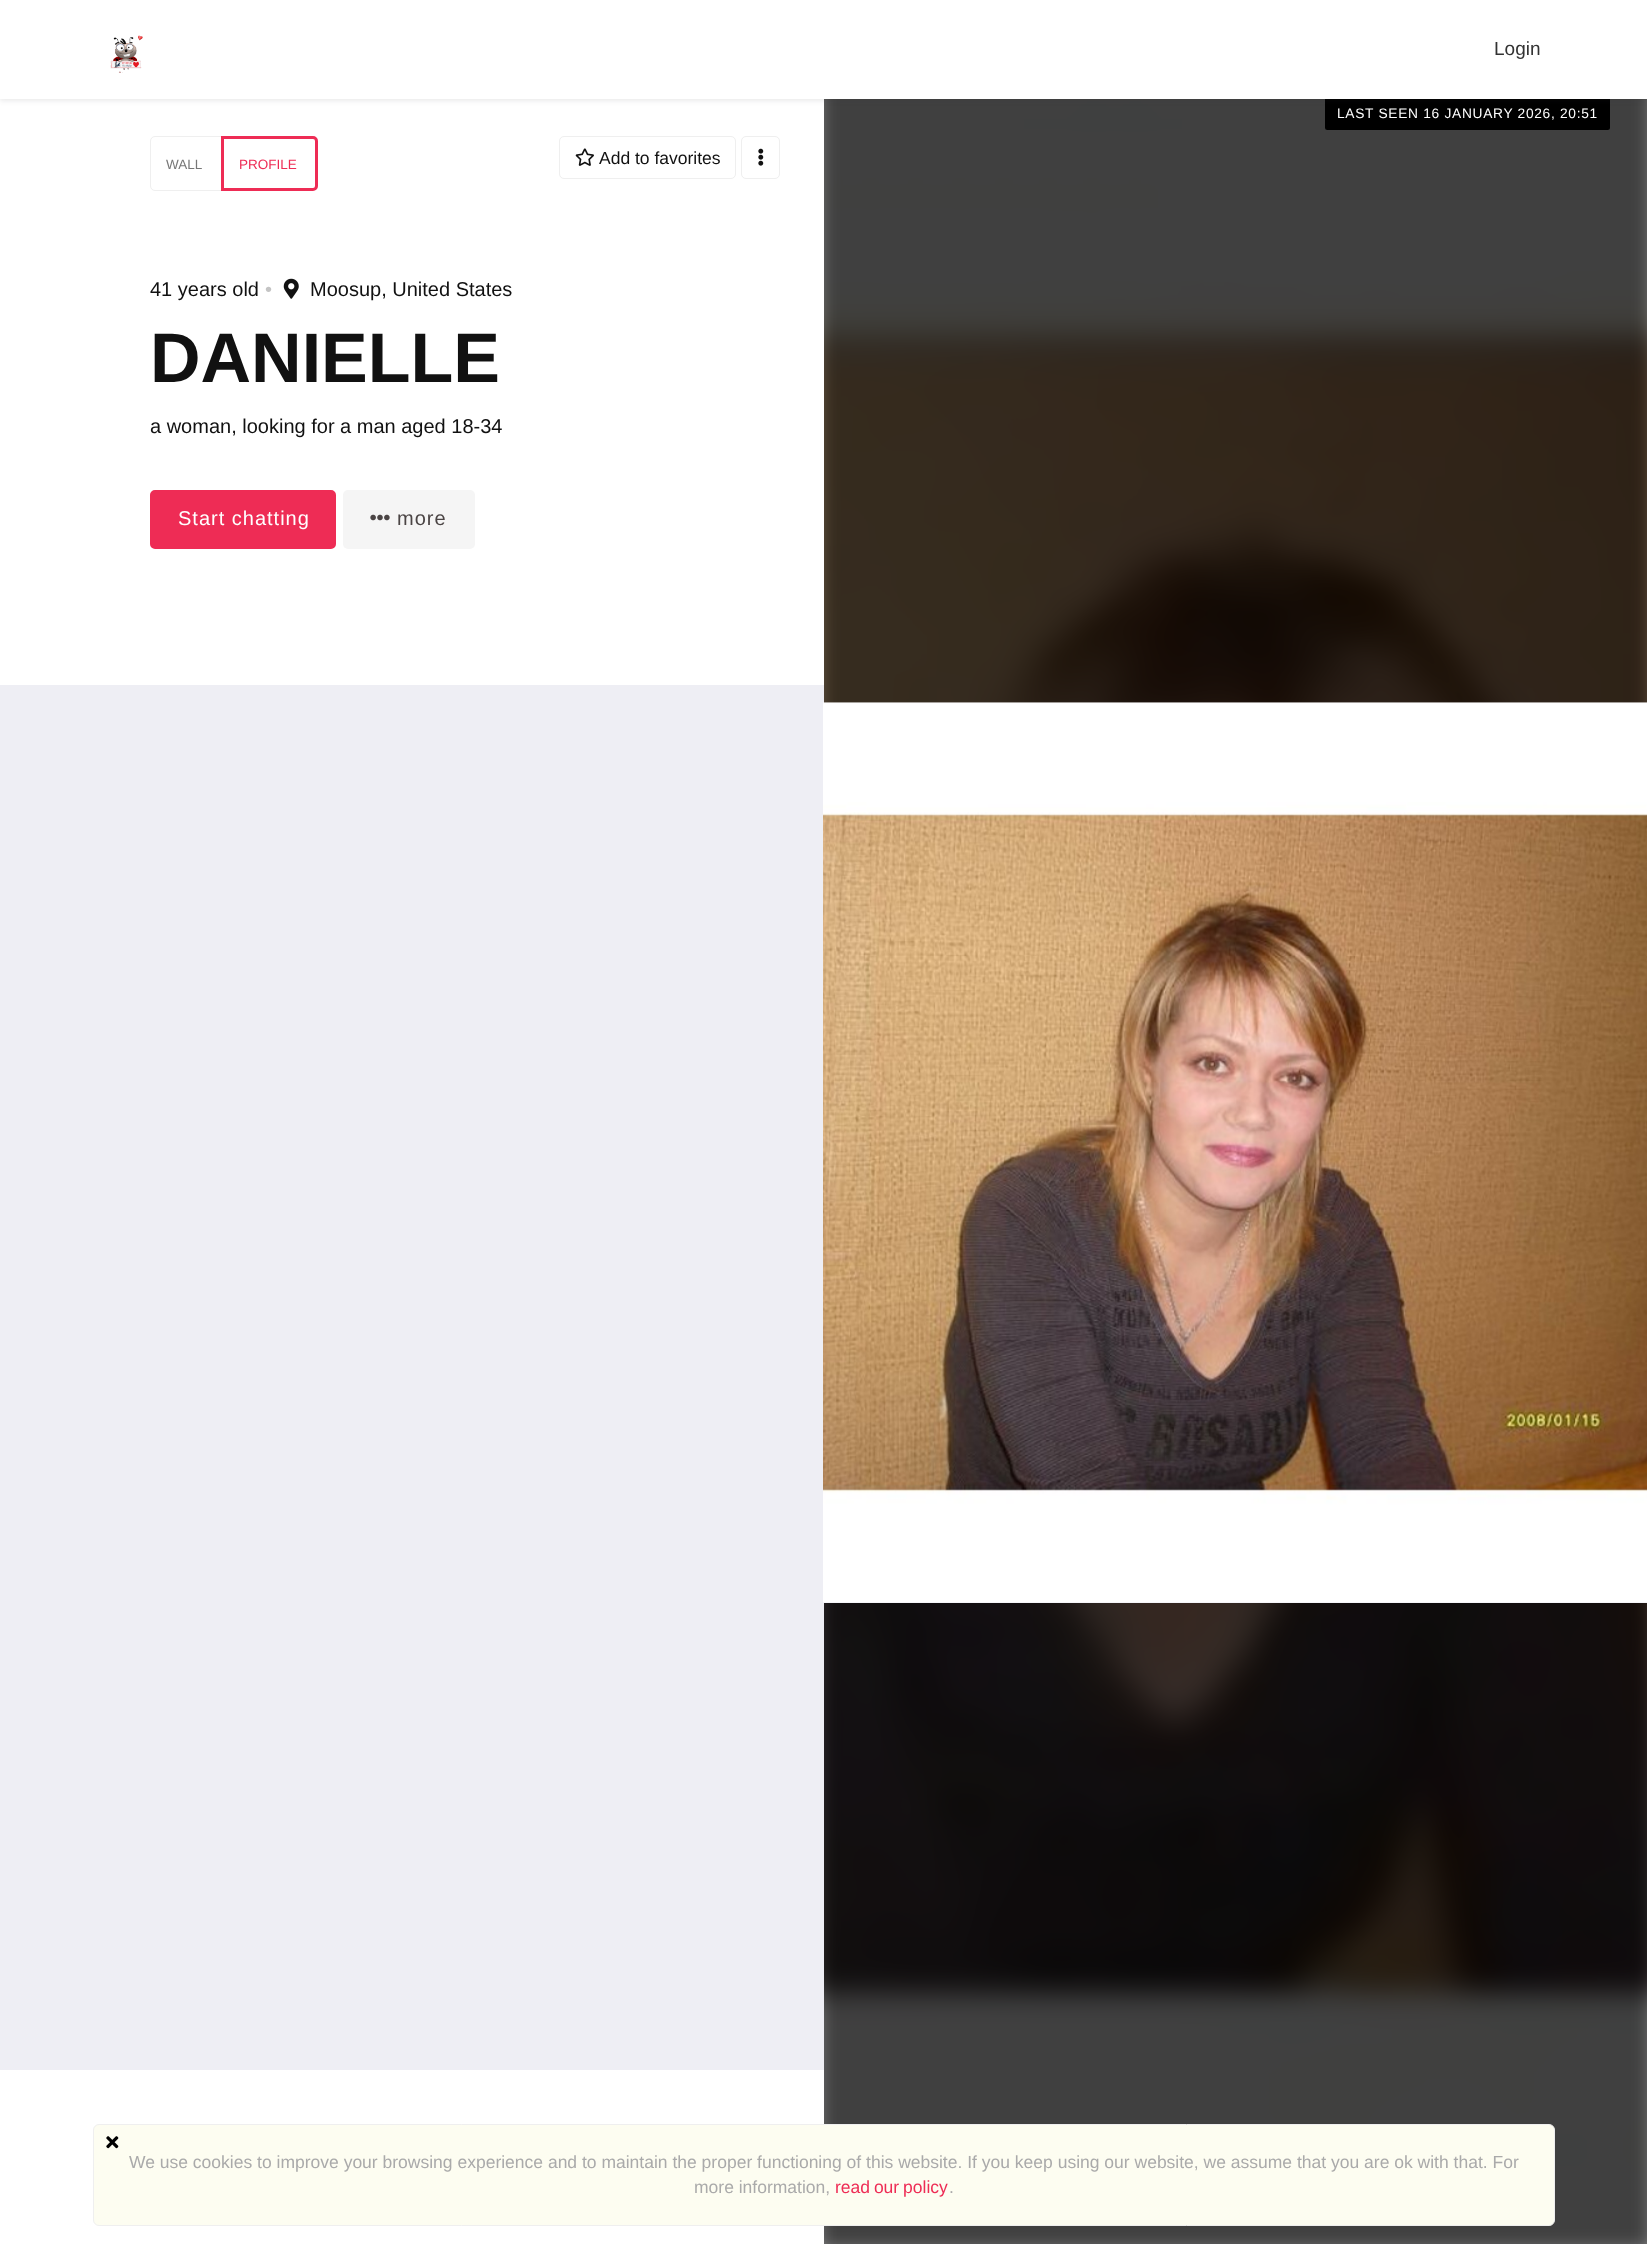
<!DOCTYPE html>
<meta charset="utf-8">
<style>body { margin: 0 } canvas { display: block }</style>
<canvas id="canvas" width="1647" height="2244"></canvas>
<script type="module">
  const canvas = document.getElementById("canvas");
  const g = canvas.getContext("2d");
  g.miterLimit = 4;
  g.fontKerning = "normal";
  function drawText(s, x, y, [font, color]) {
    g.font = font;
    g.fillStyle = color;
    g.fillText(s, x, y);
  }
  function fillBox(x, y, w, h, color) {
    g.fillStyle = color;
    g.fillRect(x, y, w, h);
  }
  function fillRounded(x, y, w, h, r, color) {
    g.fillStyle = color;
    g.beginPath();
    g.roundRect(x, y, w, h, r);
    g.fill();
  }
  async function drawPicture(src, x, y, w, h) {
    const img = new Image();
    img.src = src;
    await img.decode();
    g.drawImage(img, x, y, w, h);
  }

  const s1 = ["19px Liberation Sans", "#333333"];
  const s2 = ["13.75px Liberation Sans", "#FFFFFF"];
  const s3 = ["13.5px Liberation Sans", "#777777"];
  const s4 = ["13.5px Liberation Sans", "#EE2C55"];
  const s5 = ["17.5px Liberation Sans", "#111111"];
  const s6 = ["20px Liberation Sans", "#111111"];
  const s7 = ["20px Liberation Sans", "#C4C4C4"];
  const s8 = ["bold 70px Liberation Sans", "#111111"];
  const s9 = ["20px Liberation Sans", "#FFFFFF"];
  const s10 = ["20px Liberation Sans", "#4B4545"];
  const s11 = ["17.5px Liberation Sans", "#AAAAAA"];
  const s12 = ["17.5px Liberation Sans", "#EE2C55"];

  fillBox(0, 0, 1647, 2244, "#EEEEF4");
  fillBox(0, 99, 1647, 586, "#FFFFFF");
  await drawPicture("pic2.png", 824, 99, 823, 2145);
  fillBox(0, 2070, 824, 174, "#FFFFFF");
  g.save();
  g.beginPath();
  g.rect(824, 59, 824, 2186);
  g.clip();
  g.fillStyle = "rgba(0, 0, 0, 0.75)";
  g.filter = "blur(12.5px)";
  g.beginPath();
  g.rect(811, 46, 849, 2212);
  g.fill();
  g.filter = "none";
  g.restore();
  fillRounded(1325, 96, 285, 34, 2.5, "#000000");
  g.fillStyle = "rgba(52, 52, 60, 0.1)";
  g.filter = "blur(2.5px)";
  g.beginPath();
  g.rect(0, 3, 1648, 98);
  g.fill();
  g.filter = "none";
  fillBox(0, 0, 1647, 99, "#FFFFFF");
  await drawPicture("pic1.png", 110, 35, 33, 38);
  drawText("Login", 1494, 55, s1);
  g.letterSpacing = "0.7px";
  drawText("LAST SEEN 16 JANUARY 2026, 20:51", 1337, 118, s2);
  fillBox(824, 703, 823, 900, "#EEEEF4");
  await drawPicture("pic3.png", 823, 702, 824, 901);
  g.beginPath();
  g.roundRect(150.5, 136.5, 72, 54, [4.5, 0, 0, 4.5]);
  g.strokeStyle = "#EFEFEF";
  g.stroke();
  g.letterSpacing = "0px";
  drawText("WALL", 166, 169, s3);
  g.fillStyle = "rgba(255, 255, 255, 0.95)";
  g.beginPath();
  g.roundRect(222.5, 137.5, 94, 52, [0, 3.5, 3.5, 0]);
  g.fill();
  g.strokeStyle = "#EE2C55";
  g.lineWidth = 3;
  g.stroke();
  drawText("PROFILE", 239, 169, s4);
  g.beginPath();
  g.roundRect(559.5, 136.5, 176, 42, 4.5);
  g.strokeStyle = "#EFEFEF";
  g.lineWidth = 1;
  g.stroke();
  await drawPicture("pic4.png", 575, 148, 19, 18);
  drawText("Add to favorites", 599, 164, s5);
  g.beginPath();
  g.roundRect(741.5, 136.5, 38, 42, 4.5);
  g.stroke();
  await drawPicture("pic5.png", 758, 148, 6, 18);
  drawText("41 years old", 150, 296, s6);
  drawText("•", 265, 296, s7);
  await drawPicture("pic6.png", 283, 278, 16, 21);
  drawText("Moosup, United States", 310, 296, s6);
  drawText("DANIELLE", 150, 382, s8);
  drawText("a woman, looking for a man aged 18-34", 150, 433, s6);
  g.fillStyle = "#EE2C55";
  g.beginPath();
  g.roundRect(151.5, 491.5, 183, 56, 3.5);
  g.fill();
  g.strokeStyle = "#EE2C55";
  g.lineWidth = 3;
  g.stroke();
  g.letterSpacing = "1px";
  drawText("Start chatting", 178, 525, s9);
  fillRounded(343, 490, 132, 59, 5, "#F5F5F5");
  await drawPicture("pic7.png", 370, 514, 20, 7);
  drawText("more", 397, 525, s10);
  g.fillStyle = "#FDFDF1";
  g.beginPath();
  g.roundRect(93.5, 2124.5, 1461, 101, 5.5);
  g.fill();
  g.strokeStyle = "#EFEFEF";
  g.lineWidth = 1;
  g.stroke();
  await drawPicture("pic8.png", 106, 2136, 13, 13);
  g.letterSpacing = "0px";
  drawText("We use cookies to improve your browsing experience and to maintain the proper functioning of this website. If you keep using our website, we assume that you are ok with that. For", 129, 2168, s11);
  drawText("more information,", 694, 2193, s11);
  g.wordSpacing = "-1px";
  drawText("read our policy", 835, 2193, s12);
  g.wordSpacing = "0px";
  drawText(".", 949, 2193, s11);
</script>
